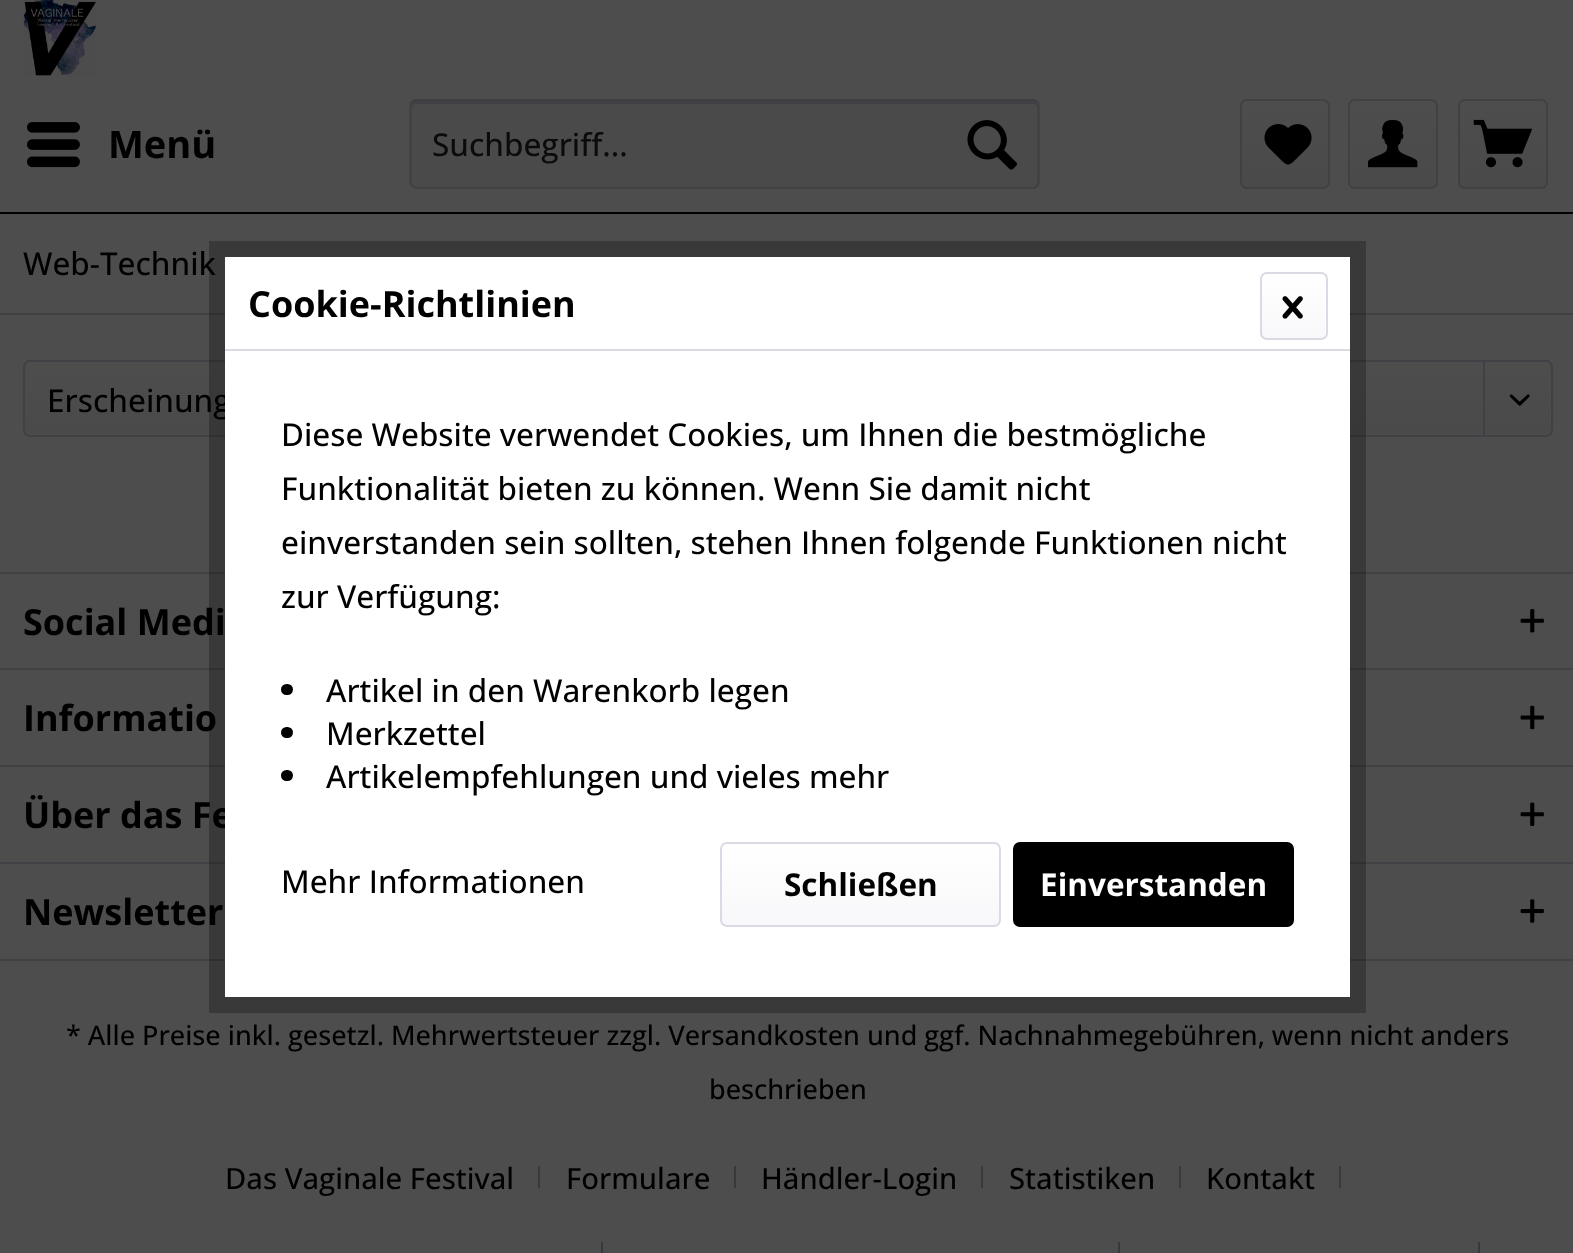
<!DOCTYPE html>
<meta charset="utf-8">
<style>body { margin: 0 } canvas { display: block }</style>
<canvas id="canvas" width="1573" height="1253"></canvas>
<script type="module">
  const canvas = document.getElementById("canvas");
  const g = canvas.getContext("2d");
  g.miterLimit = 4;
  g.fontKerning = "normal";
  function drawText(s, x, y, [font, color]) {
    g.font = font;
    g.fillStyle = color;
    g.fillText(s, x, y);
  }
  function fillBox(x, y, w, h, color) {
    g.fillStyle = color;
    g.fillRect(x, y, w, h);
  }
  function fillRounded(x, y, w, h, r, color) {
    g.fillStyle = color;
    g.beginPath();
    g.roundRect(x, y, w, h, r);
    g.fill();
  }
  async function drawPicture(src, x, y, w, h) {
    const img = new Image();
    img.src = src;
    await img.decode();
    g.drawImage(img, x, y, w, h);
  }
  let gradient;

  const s1 = ["bold 38px Open Sans", "#000000"];
  const s2 = ["500 31.5px Open Sans", "#0B0B0B"];
  const s3 = ["500 31.5px Open Sans", "#000000"];
  const s4 = ["bold 36px Open Sans", "#000000"];
  const s5 = ["500 27px Open Sans", "#000000"];
  const s6 = ["500 29.25px Open Sans", "#000000"];
  const s7 = ["bold 31.5px Open Sans", "#000000"];
  const s8 = ["bold 31.5px Open Sans", "#FFFFFF"];

  fillBox(0, 0, 1573, 1253, "#4D4D4D");
  fillBox(0, 212, 1573, 2, "#000000");
  await drawPicture("pic1.png", 23, 0, 74, 76);
  await drawPicture("pic2.png", 27, 122, 53, 46);
  drawText("Menü", 108, 158, s1);
  fillRounded(410, 99, 630, 90, 7, "#4A4A4B");
  g.fillStyle = "#414145";
  g.beginPath();
  g.moveTo(416, 104);
  g.lineTo(1033, 104);
  g.bezierCurveTo(1035, 104, 1037, 106, 1037, 108);
  g.bezierCurveTo(1037, 105, 1036, 101, 1032, 101);
  g.lineTo(417, 101);
  g.bezierCurveTo(413, 101, 412, 105, 412, 108);
  g.bezierCurveTo(412, 106, 414, 104, 416, 104);
  g.closePath();
  g.fill();
  g.beginPath();
  g.moveTo(412.5, 102);
  g.bezierCurveTo(413.5, 100.5, 415, 100, 416, 100);
  g.lineTo(1033, 100);
  g.bezierCurveTo(1034, 100, 1035.5, 100.5, 1036.5, 102);
  g.strokeStyle = "#3D3D42";
  g.lineWidth = 2.2;
  g.stroke();
  g.beginPath();
  g.moveTo(1036.5, 102);
  g.bezierCurveTo(1038, 103, 1038.5, 104.5, 1038.5, 106);
  g.lineTo(1038.5, 182);
  g.bezierCurveTo(1038.5, 183.5, 1038, 185, 1036.5, 186);
  g.bezierCurveTo(1035.5, 187.5, 1034, 188, 1033, 188);
  g.lineTo(416, 188);
  g.bezierCurveTo(415, 188, 413.5, 187.5, 412.5, 186);
  g.bezierCurveTo(411, 185, 410.5, 183.5, 410.5, 182);
  g.lineTo(410.5, 106);
  g.bezierCurveTo(410.5, 104.5, 411, 103, 412.5, 102);
  g.strokeStyle = "#414145";
  g.stroke();
  drawText("Suchbegriff...", 432, 156, s2);
  await drawPicture("pic3.png", 967, 120, 50, 50);
  gradient = g.createLinearGradient(1285, 101, 1285, 187);
  gradient.addColorStop(0, "#4D4D4D");
  gradient.addColorStop(1, "#4A4A4B");
  g.fillStyle = gradient;
  g.beginPath();
  g.roundRect(1242, 101, 86, 86, 5);
  g.fill();
  g.beginPath();
  g.roundRect(1241, 100, 88, 88, 6);
  g.lineWidth = 2;
  g.stroke();
  await drawPicture("pic4.png", 1264, 124, 48, 41);
  gradient = g.createLinearGradient(1393, 101, 1393, 187);
  gradient.addColorStop(0, "#4D4D4D");
  gradient.addColorStop(1, "#4A4A4B");
  g.fillStyle = gradient;
  g.beginPath();
  g.roundRect(1350, 101, 86, 86, 5);
  g.fill();
  g.beginPath();
  g.roundRect(1349, 100, 88, 88, 6);
  g.stroke();
  await drawPicture("pic5.png", 1368, 119, 50, 49);
  gradient = g.createLinearGradient(1503, 101, 1503, 187);
  gradient.addColorStop(0, "#4D4D4D");
  gradient.addColorStop(1, "#4A4A4B");
  g.fillStyle = gradient;
  g.beginPath();
  g.roundRect(1460, 101, 86, 86, 5);
  g.fill();
  g.beginPath();
  g.roundRect(1459, 100, 88, 88, 6);
  g.stroke();
  await drawPicture("pic6.png", 1473, 119, 60, 49);
  fillBox(0, 313, 1573, 2, "#414145");
  drawText("Web-Technik", 23, 275, s3);
  gradient = g.createLinearGradient(788, 362, 788, 434);
  gradient.addColorStop(0, "#4D4D4D");
  gradient.addColorStop(1, "#4A4A4B");
  g.fillStyle = gradient;
  g.beginPath();
  g.roundRect(25, 362, 1525, 72, 5);
  g.fill();
  g.beginPath();
  g.roundRect(24, 361, 1528, 75, 6);
  g.stroke();
  drawText("Erscheinung", 47, 412, s3);
  fillBox(1483, 362, 2, 75, "#414145");
  await drawPicture("pic7.png", 1509, 394, 21, 12);
  fillBox(0, 572, 1573, 2, "#414145");
  drawText("Social Medi", 23, 635, s4);
  await drawPicture("pic8.png", 1520, 609, 24, 24);
  fillBox(0, 668, 1573, 2, "#414145");
  drawText("Informatio", 23, 731, s4);
  await drawPicture("pic9.png", 1520, 705, 24, 25);
  fillBox(0, 765, 1573, 2, "#414145");
  drawText("Über das Fe", 23, 828, s4);
  await drawPicture("pic10.png", 1520, 802, 24, 24);
  fillBox(0, 862, 1573, 2, "#414145");
  fillBox(0, 959, 1573, 2, "#414145");
  drawText("Newsletter", 23, 925, s4);
  await drawPicture("pic11.png", 1520, 899, 24, 24);
  drawText("* Alle Preise inkl. gesetzl. Mehrwertsteuer zzgl. Versandkosten und ggf. Nachnahmegebühren, wenn nicht anders", 66, 1045, s5);
  drawText("beschrieben", 709, 1099, s5);
  drawText("Das Vaginale Festival", 225, 1189, s6);
  fillBox(538, 1166, 2, 22, "#38383E");
  drawText("Formulare", 566, 1189, s6);
  fillBox(734, 1166, 2, 22, "#38383E");
  drawText("Händler-Login", 761, 1189, s6);
  fillBox(981, 1166, 2, 22, "#38383E");
  drawText("Statistiken", 1009, 1189, s6);
  fillBox(1179, 1166, 2, 22, "#38383E");
  drawText("Kontakt", 1206, 1189, s6);
  fillBox(1339, 1166, 2, 22, "#38383E");
  fillBox(601, 1242, 2, 11, "#38383E");
  fillBox(1118, 1242, 2, 11, "#38383E");
  fillBox(1478, 1242, 2, 11, "#38383E");
  g.strokeStyle = "rgba(0, 0, 0, 0.25)";
  g.lineWidth = 16;
  g.strokeRect(217, 249, 1141, 756);
  fillBox(225, 257, 1125, 740, "#FFFFFF");
  fillBox(225, 349, 1125, 2, "#DADAE5");
  drawText("Cookie-Richtlinien", 248, 317, s4);
  gradient = g.createLinearGradient(1294, 275, 1294, 338);
  gradient.addColorStop(0, "#FFFFFF");
  gradient.addColorStop(1, "#F8F8FA");
  g.fillStyle = gradient;
  g.beginPath();
  g.roundRect(1262, 275, 63, 63, 5);
  g.fill();
  g.beginPath();
  g.roundRect(1261, 273, 66, 66, 6);
  g.strokeStyle = "#DADAE5";
  g.lineWidth = 2;
  g.stroke();
  await drawPicture("pic12.png", 1282, 296, 21, 23);
  drawText("Diese Website verwendet Cookies, um Ihnen die bestmögliche", 281, 446, s3);
  drawText("Funktionalität bieten zu können. Wenn Sie damit nicht", 281, 500, s3);
  drawText("einverstanden sein sollten, stehen Ihnen folgende Funktionen nicht", 281, 554, s3);
  drawText("zur Verfügung:", 281, 608, s3);
  fillRounded(281, 684, 12, 11, 5.5, "#000000");
  drawText("Artikel in den Warenkorb legen", 326, 702, s3);
  fillRounded(281, 727, 12, 11, 5.5, "#000000");
  drawText("Merkzettel", 326, 745, s3);
  fillRounded(281, 770, 12, 11, 5.5, "#000000");
  drawText("Artikelempfehlungen und vieles mehr", 326, 788, s3);
  drawText("Mehr Informationen", 281, 893, s3);
  gradient = g.createLinearGradient(861, 844, 861, 925);
  gradient.addColorStop(0, "#FFFFFF");
  gradient.addColorStop(1, "#F8F8FA");
  g.fillStyle = gradient;
  g.beginPath();
  g.roundRect(722, 844, 277, 81, 5);
  g.fill();
  g.beginPath();
  g.roundRect(721, 843, 279, 83, 6);
  g.stroke();
  drawText("Schließen", 784, 896, s7);
  fillRounded(1013, 842, 281, 85, 7, "#000000");
  drawText("Einverstanden", 1040, 896, s8);
</script>
